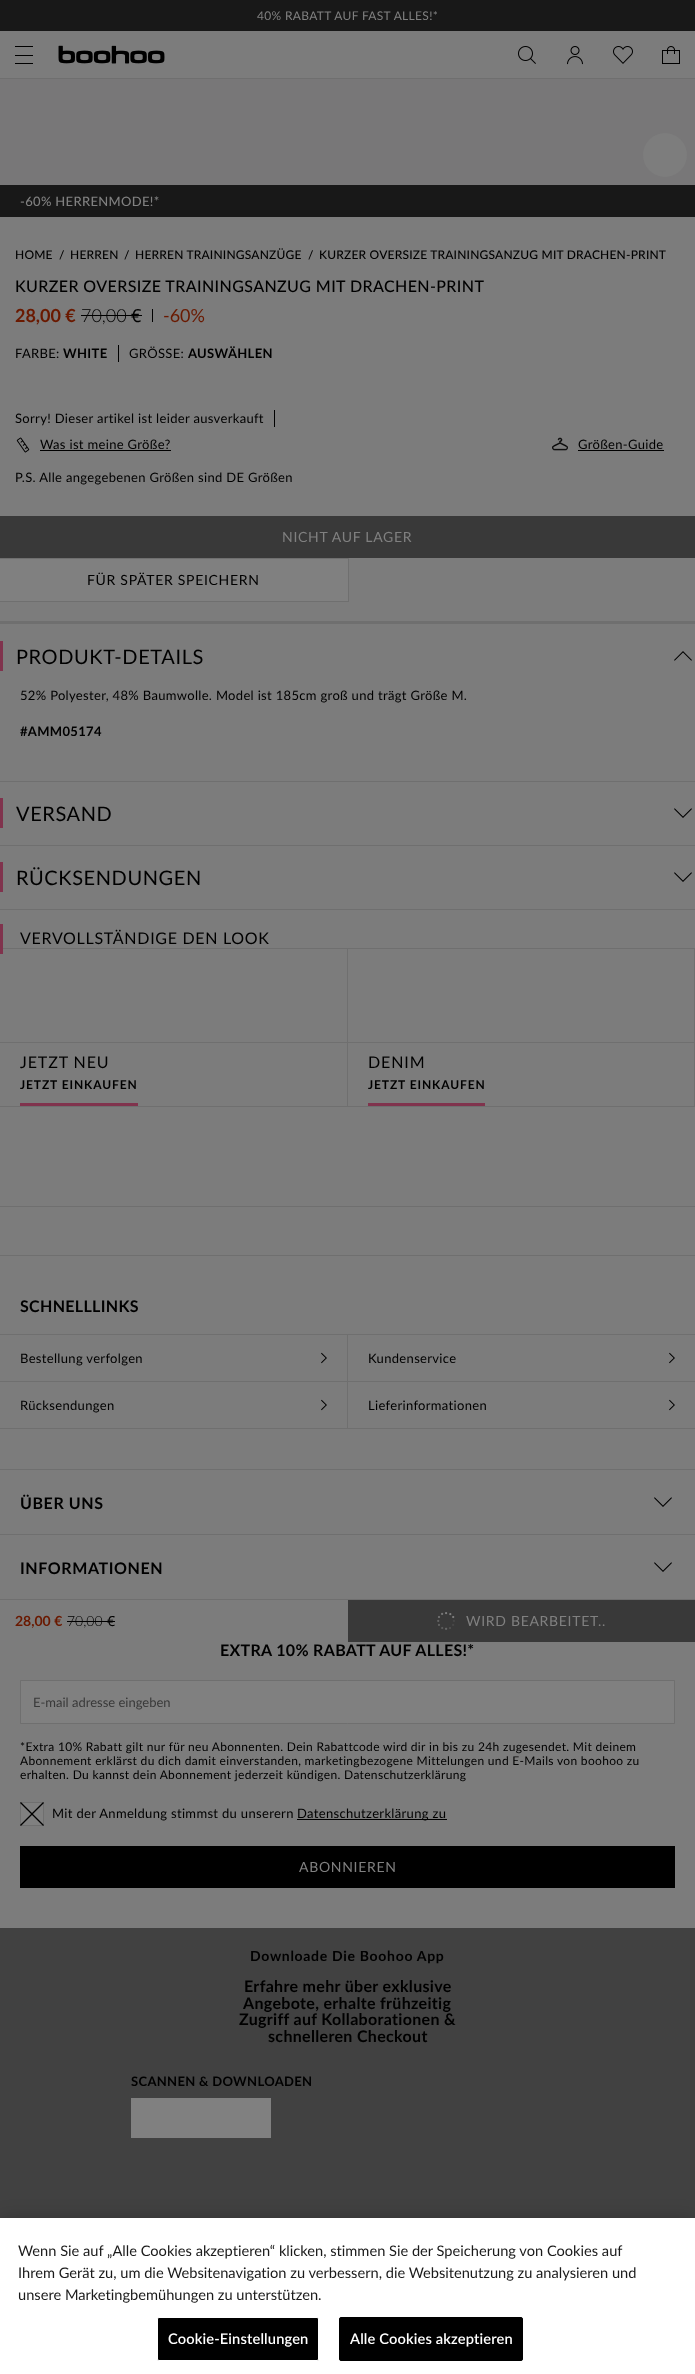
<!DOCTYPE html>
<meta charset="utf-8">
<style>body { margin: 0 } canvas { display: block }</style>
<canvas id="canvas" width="695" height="2374"></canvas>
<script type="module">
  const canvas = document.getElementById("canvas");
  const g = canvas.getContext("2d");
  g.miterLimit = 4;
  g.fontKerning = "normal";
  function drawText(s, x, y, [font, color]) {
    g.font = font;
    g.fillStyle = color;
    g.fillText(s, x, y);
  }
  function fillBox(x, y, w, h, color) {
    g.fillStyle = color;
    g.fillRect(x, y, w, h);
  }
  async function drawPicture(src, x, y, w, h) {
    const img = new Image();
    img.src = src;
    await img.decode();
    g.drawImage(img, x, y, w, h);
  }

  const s1 = ["12px Lato", "#808080"];
  const s2 = ["500 13px Lato", "#808080"];
  const s3 = ["500 12px Lato", "#000000"];
  const s4 = ["500 16px Lato", "#000000"];
  const s5 = ["bold 18px Lato", "#6A1900"];
  const s6 = ["300 18px Lato", "#000000"];
  const s7 = ["18px Noto Sans", "#000000"];
  const s8 = ["18px Lato", "#6A1900"];
  const s9 = ["13px Lato", "#000000"];
  const s10 = ["bold 13px Lato", "#000000"];
  const s11 = ["14px Lato", "#808080"];
  const s12 = ["14px Lato", "#000000"];
  const s13 = ["bold 14px Lato", "#6A1900"];
  const s14 = ["300 14px Lato", "#000000"];
  const s15 = ["14px Noto Sans", "#000000"];
  const s16 = ["20px Lato", "#000000"];
  const s17 = ["16px Lato", "#000000"];
  const s18 = ["bold 12px Lato", "#000000"];
  const s19 = ["bold 16px Lato", "#000000"];
  const s20 = ["13px Lato", "#393939"];
  const s21 = ["12px Lato", "#000000"];
  const s22 = ["bold 14px Lato", "#000000"];
  const s23 = ["14.65px Lato", "#1B1B1B"];
  const s24 = ["600 14.65px Lato", "#FFFFFF"];

  fillBox(0, 0, 695, 2374, "#7C7C7C");
  g.strokeStyle = "#6F6F6F";
  g.strokeRect(-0.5, -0.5, 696, 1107);
  g.strokeRect(-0.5, -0.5, 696, 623);
  fillBox(0, 0, 695, 31, "#181818");
  g.letterSpacing = "0.33px";
  drawText("40% RABATT AUF FAST ALLES!*", 257, 20, s1);
  fillBox(0, 78, 695, 1, "#6F6F6F");
  fillBox(15, 46, 18, 1, "#000000");
  fillBox(15, 63, 18, 1, "#000000");
  fillBox(15, 55, 18, 1, "#000000");
  await drawPicture("pic1.png", 58, 45, 107, 19);
  await drawPicture("pic2.png", 518, 46, 18, 18);
  await drawPicture("pic3.png", 567, 46, 16, 19);
  await drawPicture("pic4.png", 613, 46, 20, 18);
  await drawPicture("pic5.png", 662, 46, 18, 18);
  fillBox(0, 79, 695, 106, "#787778");
  g.fillStyle = "#7D7D7D";
  g.beginPath();
  g.arc(665, 155, 22, 0, Math.PI * 2);
  g.fill();
  fillBox(0, 185, 695, 32, "#181818");
  drawText("-60% HERRENMODE!*", 20, 206, s2);
  g.letterSpacing = "0.2px";
  drawText("HOME", 15, 259, s3);
  drawText("/", 59, 259, s3);
  drawText("HERREN", 70, 259, s3);
  drawText("/", 124, 259, s3);
  drawText("HERREN TRAININGSANZÜGE", 135, 259, s3);
  drawText("/", 308, 259, s3);
  drawText("KURZER OVERSIZE TRAININGSANZUG MIT DRACHEN-PRINT", 319, 259, s3);
  g.letterSpacing = "0.4px";
  drawText("KURZER OVERSIZE TRAININGSANZUG MIT DRACHEN-PRINT", 15, 292, s4);
  g.letterSpacing = "0px";
  drawText("28,00 €", 15, 322, s5);
  drawText("70,00", 81, 322, s6);
  drawText("€", 131, 322, s7);
  fillBox(81, 315, 61, 1, "#000000");
  fillBox(152, 309, 1, 13, "#000000");
  drawText("-60%", 163, 322, s8);
  g.letterSpacing = "0.33px";
  drawText("FARBE:", 15, 358, s9);
  drawText("WHITE", 63, 358, s10);
  fillBox(118, 345, 1, 17, "#000000");
  drawText("GRÖSSE:", 129, 358, s9);
  drawText("AUSWÄHLEN", 188, 358, s10);
  fillBox(274, 410, 1, 17, "#000000");
  drawText("Sorry! Dieser artikel ist leider ausverkauft", 15, 423, s9);
  await drawPicture("pic6.png", 16, 437, 14, 16);
  drawText("Was ist meine Größe?", 40, 449, s9);
  fillBox(40, 450, 131, 1, "#000000");
  await drawPicture("pic7.png", 552, 437, 16, 14);
  drawText("Größen-Guide", 578, 449, s9);
  fillBox(578, 450, 86, 1, "#000000");
  drawText("P.S. Alle angegebenen Größen sind DE Größen", 15, 482, s9);
  fillBox(0, 516, 695, 42, "#393939");
  g.letterSpacing = "0.7px";
  drawText("NICHT AUF LAGER", 282, 542, s11);
  fillBox(0, 559, 348, 42, "#808080");
  g.strokeRect(-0.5, 558.5, 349, 43);
  drawText("FÜR SPÄTER SPEICHERN", 87, 585, s12);
  fillBox(0, 621, 695, 1, "#6F6F6F");
  g.letterSpacing = "0px";
  drawText("28,00 €", 15, 1626, s13);
  drawText("70,00", 67, 1626, s14);
  fillBox(67, 1621, 48, 1, "#000000");
  drawText("€", 107, 1626, s15);
  fillBox(348, 1600, 347, 42, "#393939");
  await drawPicture("pic8.png", 437, 1612, 18, 18);
  g.letterSpacing = "0.7px";
  drawText("WIRD BEARBEITET..", 466, 1626, s11);
  fillBox(0, 623, 695, 1, "#6F6F6F");
  fillBox(0, 781, 695, 1, "#6F6F6F");
  fillBox(0, 641, 3, 30, "#80334D");
  g.letterSpacing = "0.6px";
  drawText("PRODUKT-DETAILS", 16, 664, s16);
  await drawPicture("pic9.png", 674, 651, 18, 10);
  g.letterSpacing = "0.33px";
  drawText("52% Polyester, 48% Baumwolle. Model ist 185cm groß und trägt Größe M.", 20, 700, s9);
  drawText("#AMM05174", 20, 736, s10);
  fillBox(0, 845, 695, 1, "#6F6F6F");
  fillBox(0, 798, 3, 30, "#80334D");
  g.letterSpacing = "0.6px";
  drawText("VERSAND", 16, 821, s16);
  await drawPicture("pic10.png", 674, 808, 18, 10);
  fillBox(0, 909, 695, 1, "#6F6F6F");
  fillBox(0, 862, 3, 30, "#80334D");
  drawText("RÜCKSENDUNGEN", 16, 885, s16);
  await drawPicture("pic10.png", 674, 872, 18, 10);
  fillBox(0, 948, 695, 1, "#6F6F6F");
  fillBox(0, 924, 3, 30, "#80334D");
  g.letterSpacing = "0.7px";
  drawText("VERVOLLSTÄNDIGE DEN LOOK", 20, 944, s17);
  fillBox(347, 949, 1, 157, "#6F6F6F");
  fillBox(0, 1042, 347, 1, "#6F6F6F");
  g.letterSpacing = "0.9px";
  drawText("JETZT NEU", 20, 1068, s17);
  drawText("JETZT EINKAUFEN", 20, 1089, s18);
  fillBox(20, 1103, 118, 3, "#80334D");
  fillBox(694, 949, 1, 157, "#6F6F6F");
  fillBox(348, 1042, 346, 1, "#6F6F6F");
  drawText("DENIM", 368, 1068, s17);
  drawText("JETZT EINKAUFEN", 368, 1089, s18);
  fillBox(368, 1103, 117, 3, "#80334D");
  fillBox(0, 1206, 695, 1, "#6F6F6F");
  fillBox(0, 1255, 695, 1, "#6F6F6F");
  g.letterSpacing = "0.33px";
  drawText("SCHNELLLINKS", 20, 1312, s19);
  fillBox(0, 1334, 695, 1, "#6F6F6F");
  fillBox(347, 1334, 1, 48, "#6F6F6F");
  fillBox(0, 1381, 695, 1, "#6F6F6F");
  drawText("Bestellung verfolgen", 20, 1363, s9);
  await drawPicture("pic11.png", 321, 1352, 6, 12);
  drawText("Kundenservice", 368, 1363, s9);
  await drawPicture("pic11.png", 669, 1352, 6, 12);
  fillBox(347, 1381, 1, 48, "#6F6F6F");
  fillBox(0, 1428, 695, 1, "#6F6F6F");
  drawText("Rücksendungen", 20, 1410, s9);
  await drawPicture("pic11.png", 321, 1399, 6, 12);
  drawText("Lieferinformationen", 368, 1410, s9);
  await drawPicture("pic11.png", 669, 1399, 6, 12);
  fillBox(0, 1469, 695, 1, "#6F6F6F");
  g.letterSpacing = "0.6px";
  drawText("ÜBER UNS", 20, 1509, s19);
  await drawPicture("pic10.png", 654, 1497, 18, 10);
  fillBox(0, 1534, 695, 1, "#6F6F6F");
  fillBox(0, 1599, 695, 1, "#6F6F6F");
  drawText("INFORMATIONEN", 20, 1574, s19);
  await drawPicture("pic10.png", 654, 1562, 18, 10);
  g.letterSpacing = "0.33px";
  drawText("EXTRA 10% RABATT AUF ALLES!*", 220, 1656, s19);
  g.fillStyle = "#808080";
  g.beginPath();
  g.rect(20.5, 1680.5, 654, 43);
  g.fill();
  g.stroke();
  g.letterSpacing = "0px";
  drawText("E-mail adresse eingeben", 33, 1707, s20);
  g.letterSpacing = "0.33px";
  drawText("*Extra 10% Rabatt gilt nur für neu Abonnenten. Dein Rabattcode wird dir in bis zu 24h zugesendet. Mit deinem", 20, 1751, s21);
  drawText("Abonnement erklärst du dich damit einverstanden, marketingbezogene Mittelungen und E-Mails von boohoo zu", 20, 1765, s21);
  drawText("erhalten. Du kannst dein Abonnement jederzeit kündigen. Datenschutzerklärung", 20, 1779, s21);
  g.fillStyle = "#808080";
  g.beginPath();
  g.rect(20.5, 1802.5, 23, 23);
  g.fill();
  g.stroke();
  await drawPicture("pic12.png", 20, 1802, 24, 24);
  drawText("Mit der Anmeldung stimmst du unserern", 52, 1818, s9);
  fillBox(297, 1819, 150, 1, "#000000");
  drawText("Datenschutzerklärung zu", 297, 1818, s9);
  fillBox(20, 1846, 655, 42, "#000000");
  g.letterSpacing = "0.7px";
  drawText("ABONNIEREN", 299, 1872, s11);
  fillBox(0, 1928, 695, 290, "#414141");
  drawText("Downloade Die Boohoo App", 250, 1961, s22);
  g.letterSpacing = "0.33px";
  drawText("Erfahre mehr über exklusive", 244, 1992, s19);
  drawText("Angebote, erhalte frühzeitig", 243, 2009, s19);
  drawText("Zugriff auf Kollaborationen &", 239, 2025, s19);
  drawText("schnelleren Checkout", 268, 2042, s19);
  drawText("SCANNEN & DOWNLOADEN", 131, 2086, s10);
  fillBox(131, 2098, 140, 40, "#808080");
  g.fillStyle = "rgba(0, 0, 0, 0.2)";
  g.filter = "blur(9px)";
  g.beginPath();
  g.rect(0, 2218, 695, 156);
  g.fill();
  g.filter = "none";
  fillBox(0, 2218, 695, 156, "#FFFFFF");
  g.letterSpacing = "0px";
  drawText("Wenn Sie auf „Alle Cookies akzeptieren“ klicken, stimmen Sie der Speicherung von Cookies auf", 18, 2256, s23);
  drawText("Ihrem Gerät zu, um die Websitenavigation zu verbessern, die Websitenutzung zu analysieren und", 18, 2278, s23);
  drawText("unsere Marketingbemühungen zu unterstützen.", 18, 2300, s23);
  g.fillStyle = "#000000";
  g.beginPath();
  g.roundRect(157.5, 2317.5, 161, 43, 1.5);
  g.fill();
  g.strokeStyle = "#FFFFFF";
  g.stroke();
  g.letterSpacing = "0.15px";
  drawText("Cookie-Einstellungen", 168, 2344, s24);
  g.fillStyle = "#000000";
  g.beginPath();
  g.roundRect(339.5, 2317.5, 183, 43, 1.5);
  g.fill();
  g.strokeStyle = "#000000";
  g.stroke();
  drawText("Alle Cookies akzeptieren", 350, 2344, s24);
</script>
